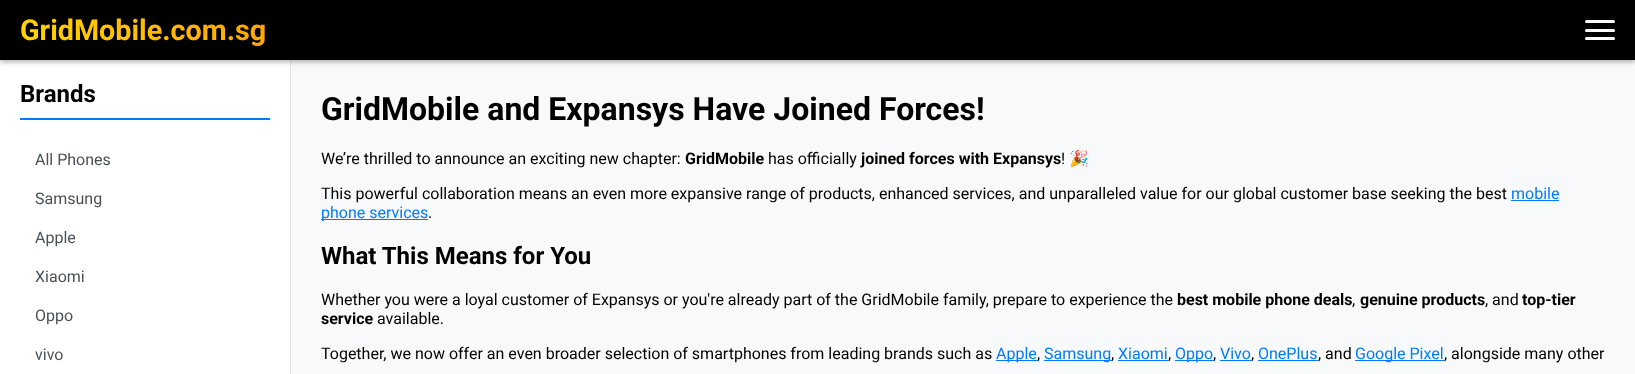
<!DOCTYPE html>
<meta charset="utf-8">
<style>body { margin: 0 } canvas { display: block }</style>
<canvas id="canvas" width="1635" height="374"></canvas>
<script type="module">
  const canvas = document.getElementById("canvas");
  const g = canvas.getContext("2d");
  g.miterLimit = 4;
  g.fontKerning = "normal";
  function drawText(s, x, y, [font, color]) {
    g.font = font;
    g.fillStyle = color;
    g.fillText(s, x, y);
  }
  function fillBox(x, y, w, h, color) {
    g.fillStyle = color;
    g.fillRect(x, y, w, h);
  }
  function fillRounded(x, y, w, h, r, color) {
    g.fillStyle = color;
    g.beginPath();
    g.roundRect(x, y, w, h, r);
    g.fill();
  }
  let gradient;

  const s1 = ["bold 24px Roboto", "#000000"];
  const s2 = ["16px Roboto", "#495057"];
  const s3 = ["bold 32px Roboto", "#000000"];
  const s4 = ["16px Roboto", "#000000"];
  const s5 = ["bold 16px Roboto", "#000000"];
  const s6 = ["16px Noto Color Emoji", "#000000"];
  const s7 = ["16px Roboto", "#007BFF"];

  fillBox(0, 0, 1635, 374, "#F8F9FA");
  fillBox(0, 60, 290, 314, "#FFFFFF");
  fillBox(290, 60, 1, 314, "#E0E0E0");
  g.fillStyle = "rgba(0, 0, 0, 0.3)";
  g.filter = "blur(2.5px)";
  g.beginPath();
  g.rect(0, 2, 1635, 60);
  g.fill();
  g.filter = "none";
  fillBox(0, 0, 1635, 60, "#000000");
  g.font = "bold 28.75px Roboto";
  gradient = g.createLinearGradient(73, 100, 213, -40);
  gradient.addColorStop(0, "#FFD700");
  gradient.addColorStop(1, "#FFA500");
  g.fillStyle = gradient;
  g.fillText("GridMobile.com.sg", 20, 40);
  fillRounded(1585, 20, 30, 3, 1.5, "#FFFFFF");
  fillRounded(1585, 29, 30, 3, 1.5, "#FFFFFF");
  fillRounded(1585, 37, 30, 3, 1.5, "#FFFFFF");
  fillBox(20, 118, 250, 2, "#007BFF");
  drawText("Brands", 20, 102, s1);
  drawText("All Phones", 35, 165, s2);
  drawText("Samsung", 35, 204, s2);
  drawText("Apple", 35, 243, s2);
  drawText("Xiaomi", 35, 282, s2);
  drawText("Oppo", 35, 321, s2);
  drawText("vivo", 35, 360, s2);
  drawText("GridMobile and Expansys Have Joined Forces!", 321, 120, s3);
  drawText("We’re thrilled to announce an exciting new chapter:", 321, 164, s4);
  drawText("GridMobile", 685, 164, s5);
  drawText("has officially", 768, 164, s4);
  drawText("joined forces with Expansys", 861, 164, s5);
  drawText("!", 1061, 164, s4);
  drawText("🎉", 1069, 164, s6);
  drawText("This powerful collaboration means an even more expansive range of products, enhanced services, and unparalleled value for our global customer base seeking the best", 321, 199, s4);
  drawText("mobile", 1511, 199, s7);
  fillBox(1511, 200, 48, 1, "#007BFF");
  fillBox(321, 219, 107, 1, "#007BFF");
  drawText("phone services", 321, 218, s7);
  drawText(".", 428, 218, s4);
  drawText("What This Means for You", 321, 264, s1);
  drawText("Whether you were a loyal customer of Expansys or you're already part of the GridMobile family, prepare to experience the", 321, 305, s4);
  drawText("best mobile phone deals", 1177, 305, s5);
  drawText(",", 1352, 305, s4);
  drawText("genuine products", 1360, 305, s5);
  drawText(", and", 1485, 305, s4);
  drawText("top-tier", 1522, 305, s5);
  drawText("service", 321, 324, s5);
  drawText("available.", 377, 324, s4);
  drawText("Together, we now offer an even broader selection of smartphones from leading brands such as", 321, 359, s4);
  fillBox(996, 360, 41, 1, "#007BFF");
  drawText("Apple", 996, 359, s7);
  drawText(",", 1037, 359, s4);
  fillBox(1044, 360, 67, 1, "#007BFF");
  drawText("Samsung", 1044, 359, s7);
  drawText(",", 1111, 359, s4);
  drawText("Xiaomi", 1118, 359, s7);
  fillBox(1118, 360, 50, 1, "#007BFF");
  drawText(",", 1168, 359, s4);
  fillBox(1175, 360, 38, 1, "#007BFF");
  drawText("Oppo", 1175, 359, s7);
  drawText(",", 1213, 359, s4);
  drawText("Vivo", 1220, 359, s7);
  fillBox(1220, 360, 31, 1, "#007BFF");
  drawText(",", 1251, 359, s4);
  drawText("OnePlus", 1258, 359, s7);
  fillBox(1258, 360, 60, 1, "#007BFF");
  drawText(", and", 1318, 359, s4);
  fillBox(1355, 360, 89, 1, "#007BFF");
  drawText("Google Pixel", 1355, 359, s7);
  drawText(", alongside many other", 1444, 359, s4);
</script>
